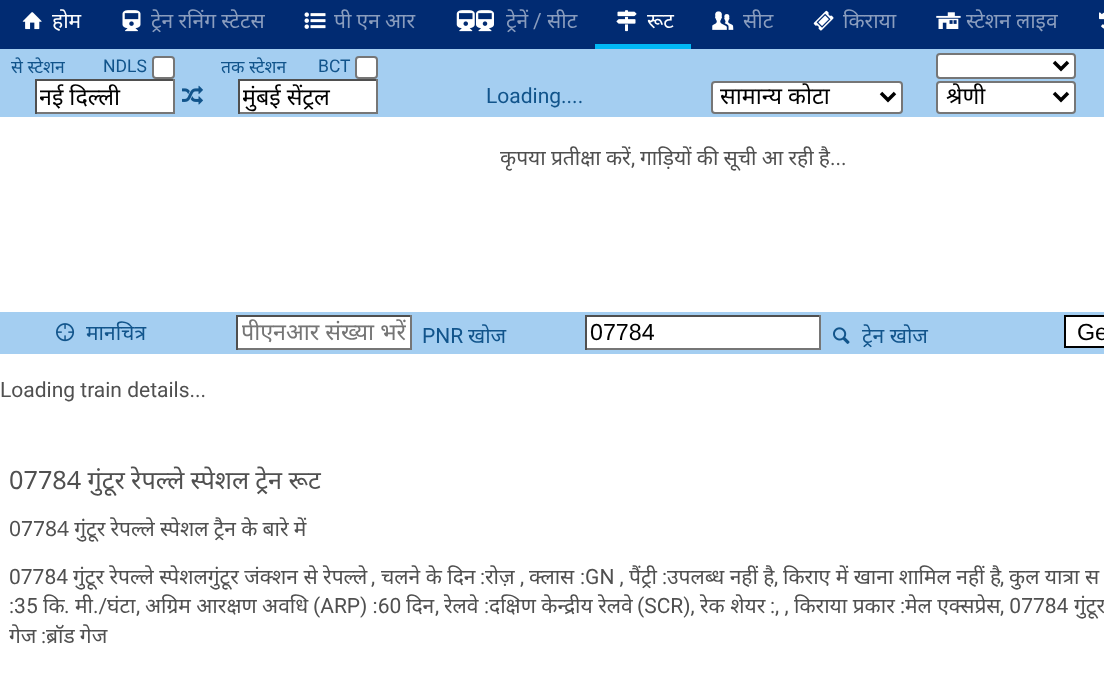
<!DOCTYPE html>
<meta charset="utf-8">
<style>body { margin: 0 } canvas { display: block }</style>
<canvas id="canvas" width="1104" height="680"></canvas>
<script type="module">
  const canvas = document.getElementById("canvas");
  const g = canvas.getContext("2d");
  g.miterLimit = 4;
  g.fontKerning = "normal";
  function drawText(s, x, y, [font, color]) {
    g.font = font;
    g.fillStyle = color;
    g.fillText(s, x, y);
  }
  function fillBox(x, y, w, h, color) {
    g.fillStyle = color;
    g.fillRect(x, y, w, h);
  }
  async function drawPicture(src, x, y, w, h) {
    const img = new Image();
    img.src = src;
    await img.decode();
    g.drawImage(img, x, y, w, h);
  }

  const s1 = ["21px Noto Sans", "#FFFFFF"];
  const s2 = ["21px Noto Sans", "#8A9DBE"];
  const s3 = ["21px Roboto", "#8A9DBE"];
  const s4 = ["17.5px Noto Sans", "#11548B"];
  const s5 = ["17.5px Roboto", "#11548B"];
  const s6 = ["23.25px Noto Sans", "#000000"];
  const s7 = ["21px Roboto", "#11548B"];
  const s8 = ["21px Noto Sans", "#505050"];
  const s9 = ["21px Roboto", "#505050"];
  const s10 = ["21px Noto Sans", "#11548B"];
  const s11 = ["23.25px Noto Sans", "#757575"];
  const s12 = ["23.25px Liberation Sans", "#000000"];
  const s13 = ["25.25px Noto Sans", "#505050"];

  fillBox(0, 0, 1104, 680, "#012B72");
  await drawPicture("pic1.png", 22, 12, 20, 18);
  drawText("होम", 52, 28, s1);
  await drawPicture("pic2.png", 122, 10, 19, 22);
  g.wordSpacing = "-0.25px";
  drawText("ट्रेन रनिंग स्टेटस", 151, 28, s2);
  await drawPicture("pic3.png", 304, 12, 22, 17);
  drawText("पी एन आर", 334, 28, s2);
  await drawPicture("pic4.png", 456, 10, 19, 22);
  await drawPicture("pic5.png", 476, 10, 18, 22);
  g.wordSpacing = "0px";
  drawText("ट्रेनें", 506, 28, s2);
  drawText("/", 533, 28, s3);
  drawText("सीट", 547, 28, s2);
  fillBox(595, 44, 96, 5, "#00B9F5");
  await drawPicture("pic6.png", 616, 10, 21, 22);
  drawText("रूट", 647, 28, s1);
  await drawPicture("pic7.png", 712, 11, 22, 19);
  drawText("सीट", 743, 28, s2);
  await drawPicture("pic8.png", 813, 10, 21, 21);
  drawText("किराया", 843, 28, s2);
  await drawPicture("pic9.png", 936, 12, 25, 17);
  g.wordSpacing = "-0.25px";
  drawText("स्टेशन लाइव", 966, 28, s2);
  await drawPicture("pic10.png", 1099, 12, 5, 17);
  fillBox(0, 117, 1104, 563, "#FFFFFF");
  fillBox(0, 49, 1104, 68, "#A4CEF1");
  g.wordSpacing = "0px";
  drawText("से स्टेशन", 11, 73, s4);
  drawText("NDLS", 103, 72, s5);
  g.fillStyle = "#FFFFFF";
  g.beginPath();
  g.roundRect(153, 57, 21, 21, 3);
  g.fill();
  g.strokeStyle = "#767676";
  g.lineWidth = 2;
  g.stroke();
  drawText("तक स्टेशन", 221, 73, s4);
  drawText("BCT", 318, 72, s5);
  g.fillStyle = "#FFFFFF";
  g.beginPath();
  g.roundRect(356, 57, 21, 21, 3);
  g.fill();
  g.stroke();
  g.beginPath();
  g.roundRect(937, 54, 138, 24, 3);
  g.fill();
  g.stroke();
  g.beginPath();
  g.moveTo(1054, 62);
  g.lineTo(1061, 69);
  g.lineTo(1068, 62);
  g.strokeStyle = "#000000";
  g.lineWidth = 3.5;
  g.stroke();
  fillBox(37, 81, 136, 31, "#FFFFFF");
  fillBox(35, 79, 140, 2, "#4F4F4F");
  fillBox(173, 79, 2, 35, "#767676");
  fillBox(35, 112, 140, 2, "#767676");
  fillBox(35, 79, 2, 35, "#4F4F4F");
  g.save();
  g.beginPath();
  g.rect(40, 81, 130, 31);
  g.clip();
  drawText("नई दिल्ली", 39, 105, s6);
  g.restore();
  await drawPicture("pic11.png", 182, 85, 21, 20);
  fillBox(240, 81, 136, 31, "#FFFFFF");
  fillBox(238, 79, 140, 2, "#4F4F4F");
  fillBox(376, 79, 2, 35, "#767676");
  fillBox(238, 112, 140, 2, "#767676");
  fillBox(238, 79, 2, 35, "#4F4F4F");
  g.save();
  g.beginPath();
  g.rect(243, 81, 130, 31);
  g.clip();
  drawText("मुंबई सेंट्रल", 242, 105, s6);
  g.restore();
  drawText("Loading....", 486, 103, s7);
  g.fillStyle = "#FFFFFF";
  g.beginPath();
  g.roundRect(712, 82, 190, 31, 3);
  g.fill();
  g.strokeStyle = "#767676";
  g.lineWidth = 2;
  g.stroke();
  g.beginPath();
  g.moveTo(881, 93);
  g.lineTo(888, 100);
  g.lineTo(895, 93);
  g.strokeStyle = "#000000";
  g.lineWidth = 3.5;
  g.stroke();
  drawText("सामान्य कोटा", 720, 104, s6);
  g.fillStyle = "#FFFFFF";
  g.beginPath();
  g.roundRect(937, 82, 138, 31, 3);
  g.fill();
  g.strokeStyle = "#767676";
  g.lineWidth = 2;
  g.stroke();
  g.beginPath();
  g.moveTo(1054, 93);
  g.lineTo(1061, 100);
  g.lineTo(1068, 93);
  g.strokeStyle = "#000000";
  g.lineWidth = 3.5;
  g.stroke();
  g.save();
  g.beginPath();
  g.rect(945, 82, 102, 30);
  g.clip();
  drawText("श्रेणी", 946, 104, s6);
  g.restore();
  g.wordSpacing = "-0.25px";
  drawText("कृपया प्रतीक्षा करें", 500, 165, s8);
  g.wordSpacing = "0px";
  drawText(",", 631, 165, s9);
  g.wordSpacing = "-0.25px";
  drawText("गाड़ियों की सूची आ रही है", 640, 165, s8);
  g.wordSpacing = "0px";
  drawText("...", 830, 165, s9);
  fillBox(0, 312, 1104, 42, "#A4CEF1");
  await drawPicture("pic12.png", 56, 323, 19, 19);
  drawText("मानचित्र", 86, 340, s10);
  fillBox(238, 317, 172, 31, "#FFFFFF");
  fillBox(236, 315, 175, 2, "#4F4F4F");
  fillBox(410, 315, 2, 35, "#767676");
  fillBox(236, 348, 175, 2, "#767676");
  fillBox(236, 315, 2, 35, "#4F4F4F");
  g.save();
  g.beginPath();
  g.rect(242, 317, 164, 30);
  g.clip();
  drawText("पीएनआर संख्या भरें", 241, 340, s11);
  g.restore();
  drawText("PNR", 422, 343, s7);
  drawText("खोज", 468, 343, s10);
  fillBox(587, 317, 232, 31, "#FFFFFF");
  fillBox(585, 315, 236, 2, "#4F4F4F");
  fillBox(819, 315, 2, 35, "#767676");
  fillBox(585, 348, 236, 2, "#767676");
  fillBox(585, 315, 2, 35, "#4F4F4F");
  drawText("07784", 590, 340, s12);
  await drawPicture("pic13.png", 833, 327, 17, 17);
  drawText("ट्रेन खोज", 862, 343, s10);
  g.fillStyle = "#FFFFFF";
  g.beginPath();
  g.rect(1065, 316, 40, 31);
  g.fill();
  g.lineWidth = 2;
  g.stroke();
  drawText("Ge", 1077, 340, s12);
  drawText("Loading train details...", 0, 397, s9);
  g.wordSpacing = "-0.25px";
  drawText("07784 गुंटूर रेपल्ले स्पेशल ट्रेन रूट", 9, 489, s13);
  drawText("07784 गुंटूर रेपल्ले स्पेशल ट्रैन के बारे में", 9, 536, s8);
  g.wordSpacing = "0px";
  drawText("07784", 9, 584, s9);
  drawText("गुंटूर रेपल्ले स्पेशलगुंटूर जंक्शन से रेपल्ले", 73, 584, s8);
  drawText("चलने के दिन", 381, 584, s8);
  drawText(":", 480, 584, s9);
  drawText("रोज़", 485, 584, s8);
  drawText("क्लास", 529, 584, s8);
  drawText(":GN ,", 580, 584, s9);
  drawText("पैंट्री", 629, 584, s8);
  drawText("उपलब्ध नहीं है", 667, 584, s8);
  drawText("किराए में खाना शामिल नहीं है", 783, 584, s8);
  drawText(",", 1000, 584, s9);
  drawText("कुल यात्रा स", 1009, 584, s8);
  drawText(",", 371, 584, s9);
  drawText(",", 520, 584, s9);
  drawText(":", 662, 584, s9);
  drawText(",", 774, 584, s9);
  drawText(":35", 9, 613, s9);
  drawText("कि", 43, 613, s8);
  drawText("मी", 75, 613, s8);
  drawText("./", 93, 613, s9);
  drawText("घंटा", 107, 613, s8);
  drawText("अग्रिम आरक्षण अवधि", 145, 613, s8);
  drawText("(ARP) :60", 313, 613, s9);
  drawText("दिन", 406, 613, s8);
  drawText(",", 435, 613, s9);
  drawText("रेलवे", 444, 613, s8);
  drawText(":", 484, 613, s9);
  drawText("दक्षिण केन्द्रीय रेलवे", 489, 613, s8);
  drawText("(SCR),", 637, 613, s9);
  drawText("रेक शेयर", 700, 613, s8);
  drawText(":, ,", 770, 613, s9);
  drawText("किराया प्रकार", 794, 613, s8);
  drawText(":", 900, 613, s9);
  drawText("मेल एक्सप्रेस", 905, 613, s8);
  drawText(", 07784", 1000, 613, s9);
  drawText("गुंटूर", 1074, 613, s8);
  drawText(".", 64, 613, s9);
  drawText(",", 136, 613, s9);
  drawText("गेज", 9, 643, s8);
  drawText(":", 41, 643, s9);
  g.wordSpacing = "-0.25px";
  drawText("ब्रॉड गेज", 46, 643, s8);
</script>
